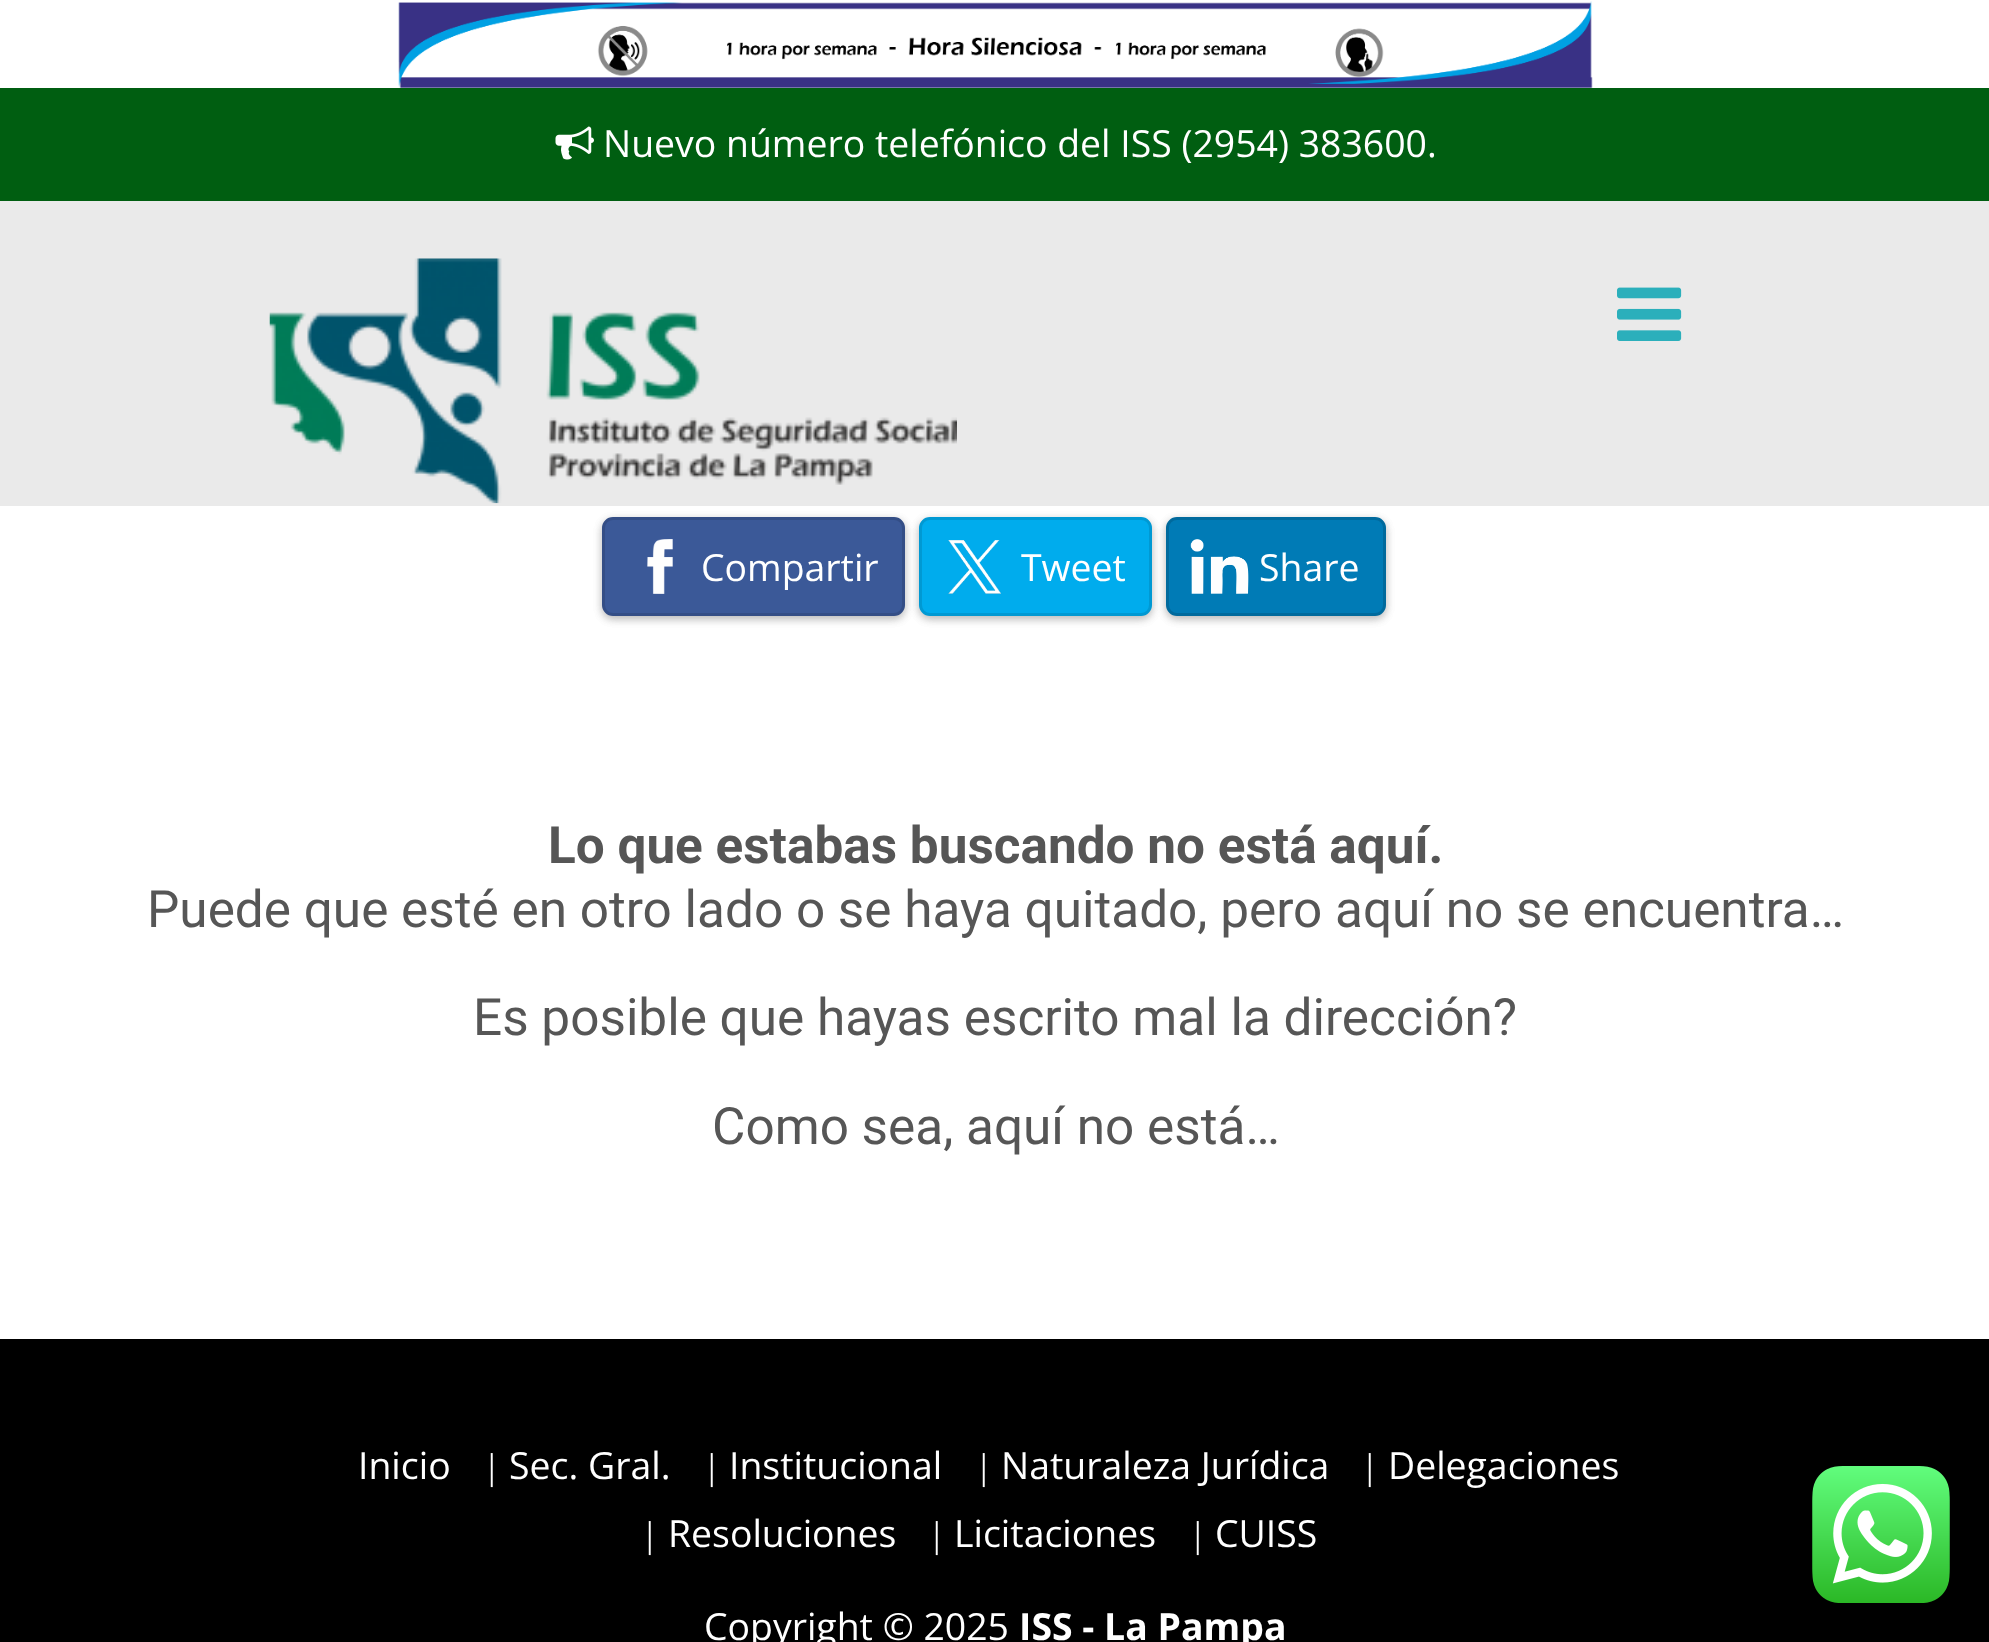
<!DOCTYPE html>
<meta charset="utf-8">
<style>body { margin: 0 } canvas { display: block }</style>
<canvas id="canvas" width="1989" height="1642"></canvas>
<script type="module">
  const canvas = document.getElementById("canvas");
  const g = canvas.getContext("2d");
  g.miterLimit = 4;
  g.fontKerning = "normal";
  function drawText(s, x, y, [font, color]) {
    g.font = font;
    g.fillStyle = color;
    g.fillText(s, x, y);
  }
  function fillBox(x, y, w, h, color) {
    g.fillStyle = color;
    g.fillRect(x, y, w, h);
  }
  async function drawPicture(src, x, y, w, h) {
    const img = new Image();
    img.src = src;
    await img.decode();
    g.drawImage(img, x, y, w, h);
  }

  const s1 = ["37.4px Open Sans", "#FFFFFF"];
  const s2 = ["bold 51.3px Roboto", "#565656"];
  const s3 = ["51.3px Roboto", "#565656"];
  const s4 = ["37.4px Liberation Serif", "#FFFFFF"];
  const s5 = ["bold 37.4px Open Sans", "#FFFFFF"];

  fillBox(0, 0, 1989, 1642, "#FFFFFF");
  await drawPicture("pic1.png", 398, 1, 1195, 87);
  fillBox(0, 88, 1989, 113, "#005E11");
  await drawPicture("pic2.png", 555, 126, 39, 34);
  drawText("Nuevo número telefónico del ISS (2954) 383600.", 603, 157, s1);
  fillBox(0, 201, 1989, 305, "#EAEAEA");
  await drawPicture("pic3.png", 269, 258, 688, 246);
  await drawPicture("pic4.png", 1617, 287, 65, 54);
  g.fillStyle = "rgba(0, 0, 0, 0.15)";
  g.filter = "blur(4px)";
  g.beginPath();
  g.roundRect(602, 520, 303, 99, 11);
  g.fill();
  g.filter = "none";
  g.filter = "blur(4px)";
  g.beginPath();
  g.roundRect(602, 520, 303, 99, 11);
  g.fill();
  g.filter = "none";
  g.fillStyle = "#3B5998";
  g.beginPath();
  g.roundRect(603.5, 518.5, 300, 96, 9.5);
  g.fill();
  g.strokeStyle = "#344E86";
  g.lineWidth = 3;
  g.stroke();
  await drawPicture("pic5.png", 647, 539, 26, 55);
  drawText("Compartir", 701, 581, s1);
  g.fillStyle = "rgba(0, 0, 0, 0.15)";
  g.filter = "blur(4px)";
  g.beginPath();
  g.roundRect(919, 520, 233, 99, 11);
  g.fill();
  g.filter = "none";
  g.filter = "blur(4px)";
  g.beginPath();
  g.roundRect(919, 520, 233, 99, 11);
  g.fill();
  g.filter = "none";
  g.fillStyle = "#00ACED";
  g.beginPath();
  g.roundRect(920.5, 518.5, 230, 96, 9.5);
  g.fill();
  g.strokeStyle = "#0099D3";
  g.stroke();
  await drawPicture("pic6.png", 948, 540, 53, 54);
  drawText("Tweet", 1021, 581, s1);
  g.fillStyle = "rgba(0, 0, 0, 0.15)";
  g.filter = "blur(4px)";
  g.beginPath();
  g.roundRect(1166, 520, 220, 99, 11);
  g.fill();
  g.filter = "none";
  g.filter = "blur(4px)";
  g.beginPath();
  g.roundRect(1166, 520, 220, 99, 11);
  g.fill();
  g.filter = "none";
  g.fillStyle = "#007BB6";
  g.beginPath();
  g.roundRect(1167.5, 518.5, 217, 96, 9.5);
  g.fill();
  g.strokeStyle = "#006A9D";
  g.stroke();
  await drawPicture("pic7.png", 1190, 539, 59, 55);
  drawText("Share", 1259, 581, s1);
  drawText("Lo que estabas buscando no está aquí.", 548, 863, s2);
  drawText("Puede que esté en otro lado o se haya quitado, pero aquí no se encuentra…", 147, 927, s3);
  drawText("Es posible que hayas escrito mal la dirección?", 473, 1035, s3);
  drawText("Como sea, aquí no está…", 712, 1144, s3);
  fillBox(0, 1339, 1989, 303, "#000000");
  drawText("Inicio", 358, 1479, s1);
  drawText("|", 488, 1479, s4);
  drawText("Sec. Gral.", 509, 1479, s1);
  drawText("|", 708, 1479, s4);
  drawText("Institucional", 729, 1479, s1);
  drawText("|", 980, 1479, s4);
  drawText("Naturaleza Jurídica", 1001, 1479, s1);
  drawText("|", 1366, 1479, s4);
  drawText("Delegaciones", 1388, 1479, s1);
  drawText("|", 646, 1547, s4);
  drawText("Resoluciones", 668, 1547, s1);
  drawText("|", 933, 1547, s4);
  drawText("Licitaciones", 954, 1547, s1);
  drawText("|", 1194, 1547, s4);
  drawText("CUISS", 1215, 1547, s1);
  drawText("Copyright © 2025", 704, 1640, s1);
  drawText("ISS - La Pampa", 1019, 1640, s5);
  await drawPicture("pic8.png", 1812, 1466, 138, 137);
</script>
